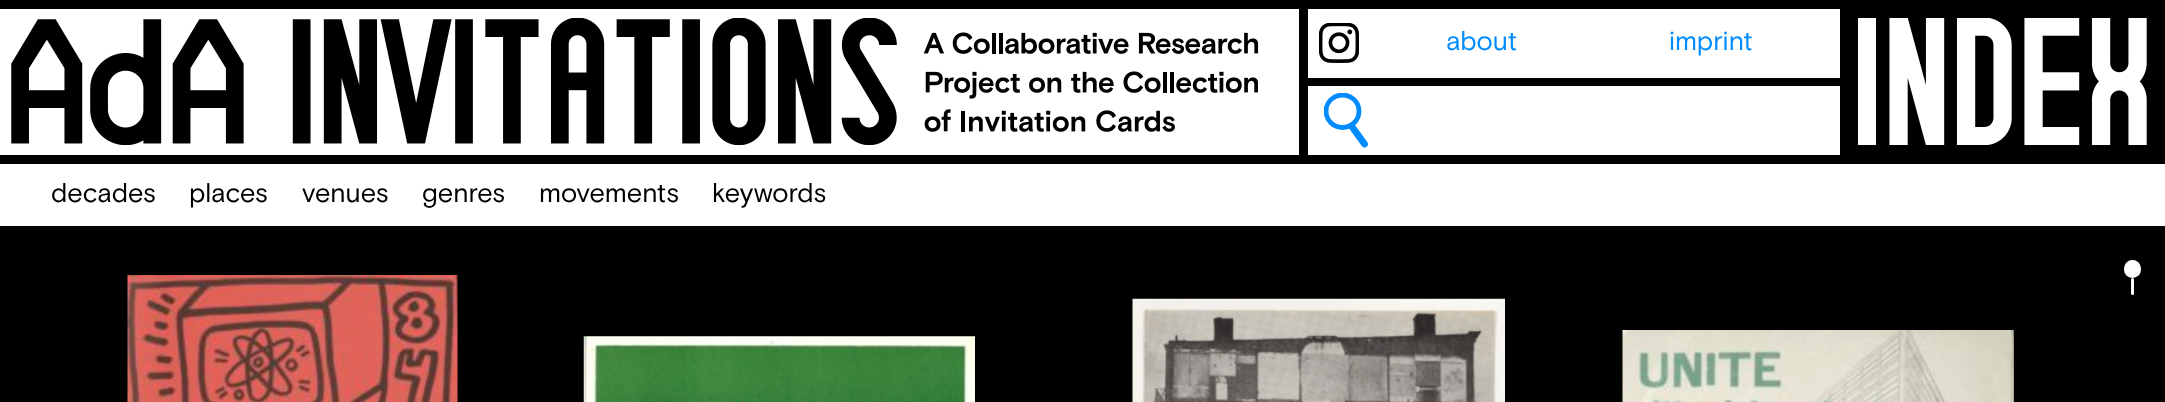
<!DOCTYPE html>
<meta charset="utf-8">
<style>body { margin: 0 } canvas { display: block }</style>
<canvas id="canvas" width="2165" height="402"></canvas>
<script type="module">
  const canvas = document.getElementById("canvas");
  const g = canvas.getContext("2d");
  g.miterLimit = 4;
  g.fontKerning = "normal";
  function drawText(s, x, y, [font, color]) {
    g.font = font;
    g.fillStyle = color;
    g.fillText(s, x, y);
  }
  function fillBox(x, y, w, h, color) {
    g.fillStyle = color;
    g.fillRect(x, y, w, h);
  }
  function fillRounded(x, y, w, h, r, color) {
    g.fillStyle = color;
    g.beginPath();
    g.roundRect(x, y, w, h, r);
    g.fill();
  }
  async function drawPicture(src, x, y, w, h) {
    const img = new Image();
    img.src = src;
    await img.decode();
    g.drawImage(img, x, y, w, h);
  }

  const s1 = ["27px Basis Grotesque", "#008CFF"];
  const s2 = ["27px Basis Grotesque", "#000000"];

  fillBox(0, 0, 2165, 402, "#000000");
  fillBox(0, 9, 1299, 146, "#FFFFFF");
  await drawPicture("pic1.png", 11, 18, 1248, 127);
  fillBox(1308, 9, 532, 69, "#FFFFFF");
  await drawPicture("pic2.png", 1319, 23, 40, 40);
  drawText("about", 1446, 50, s1);
  drawText("imprint", 1669, 50, s1);
  fillBox(1308, 86, 532, 69, "#FFFFFF");
  g.save();
  g.beginPath();
  g.rect(1324, 93, 45, 55);
  g.clip();
  g.beginPath();
  g.moveTo(1342.5, 127.5);
  g.bezierCurveTo(1351.5, 127.5, 1359, 120.5, 1359, 111);
  g.bezierCurveTo(1359, 102, 1351.5, 95, 1342.5, 95);
  g.bezierCurveTo(1333.5, 95, 1326, 102, 1326, 111);
  g.bezierCurveTo(1326, 120.5, 1333.5, 127.5, 1342.5, 127.5);
  g.closePath();
  g.strokeStyle = "#008CFF";
  g.lineWidth = 4.8;
  g.stroke();
  g.restore();
  g.beginPath();
  g.moveTo(1351.5, 126);
  g.lineTo(1364.5, 144);
  g.strokeStyle = "#008CFF";
  g.lineWidth = 6.8;
  g.lineCap = "round";
  g.lineJoin = "round";
  g.stroke();
  await drawPicture("pic3.png", 1858, 18, 289, 127);
  fillBox(0, 164, 2165, 62, "#FFFFFF");
  drawText("decades", 51, 202, s2);
  drawText("places", 189, 202, s2);
  drawText("venues", 302, 202, s2);
  drawText("genres", 422, 202, s2);
  drawText("movements", 539, 202, s2);
  drawText("keywords", 712, 202, s2);
  await drawPicture("pic4.png", 127, 275, 331, 127);
  await drawPicture("pic5.png", 583, 336, 392, 66);
  await drawPicture("pic6.png", 1132, 298, 373, 104);
  await drawPicture("pic7.png", 1622, 330, 392, 72);
  fillRounded(2124, 260, 17, 18, 8.5, "#FFFFFF");
  fillRounded(2131, 278, 3, 17, 1.5, "#FFFFFF");
</script>
